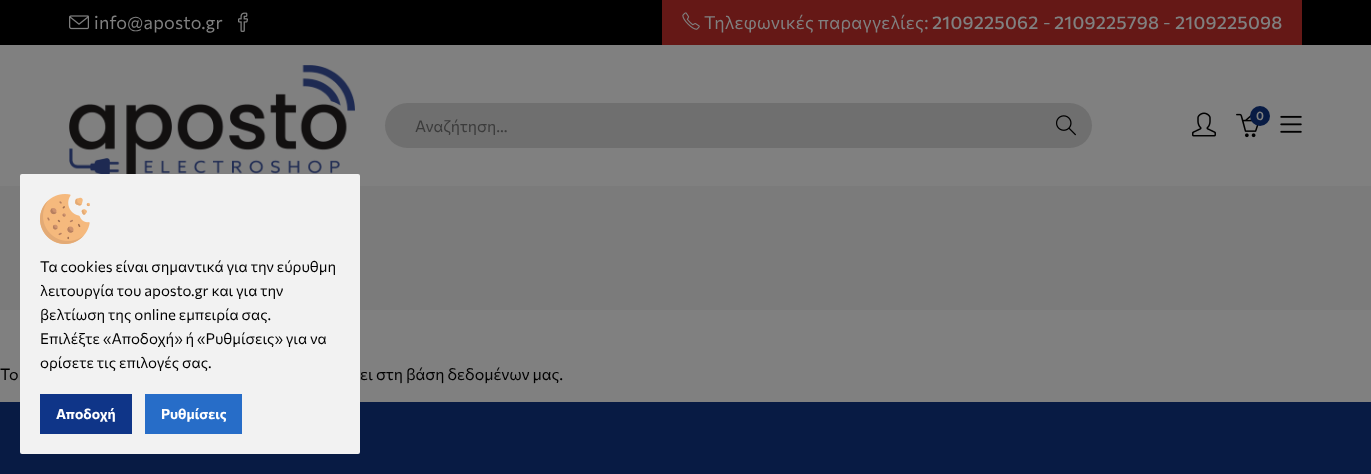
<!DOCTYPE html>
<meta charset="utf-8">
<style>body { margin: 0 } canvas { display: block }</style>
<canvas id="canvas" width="1371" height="474"></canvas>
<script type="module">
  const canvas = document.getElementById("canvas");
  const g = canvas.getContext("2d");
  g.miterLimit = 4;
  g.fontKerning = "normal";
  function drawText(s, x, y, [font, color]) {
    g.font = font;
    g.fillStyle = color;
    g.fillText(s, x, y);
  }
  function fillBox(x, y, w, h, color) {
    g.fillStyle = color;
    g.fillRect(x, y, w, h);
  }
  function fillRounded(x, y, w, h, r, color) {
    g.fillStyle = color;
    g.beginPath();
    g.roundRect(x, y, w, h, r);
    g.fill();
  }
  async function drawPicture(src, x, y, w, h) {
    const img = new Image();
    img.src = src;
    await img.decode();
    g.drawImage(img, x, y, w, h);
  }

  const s1 = ["18px Commissioner", "#808080"];
  const s2 = ["500 18px Commissioner", "#808080"];
  const s3 = ["600 12px Commissioner", "#808080"];
  const s4 = ["16px Commissioner", "#3B3B3B"];
  const s5 = ["15px Commissioner", "#000000"];
  const s6 = ["bold 14px Commissioner", "#FFFFFF"];
  const s7 = ["16px Commissioner", "#000000"];

  fillBox(0, 0, 1371, 474, "#808080");
  fillBox(0, 0, 1371, 45, "#000000");
  await drawPicture("pic1.png", 69, 15, 20, 15);
  g.letterSpacing = "0.25px";
  drawText("info@aposto.gr", 94, 29, s1);
  await drawPicture("pic2.png", 238, 12, 10, 20);
  fillBox(662, 0, 640, 45, "#651816");
  await drawPicture("pic3.png", 682, 12, 18, 18);
  drawText("Τηλεφωνικές παραγγελίες:", 704, 29, s1);
  drawText("2109225062", 932, 29, s2);
  drawText("-", 1043, 29, s1);
  drawText("2109225798", 1054, 29, s2);
  drawText("-", 1163, 29, s1);
  drawText("2109225098", 1175, 29, s2);
  await drawPicture("pic4.png", 69, 65, 286, 109);
  await drawPicture("pic5.png", 1192, 112, 24, 25);
  await drawPicture("pic6.png", 1236, 113, 23, 25);
  g.fillStyle = "#081B44";
  g.beginPath();
  g.arc(1260, 116, 10, 0, Math.PI * 2);
  g.fill();
  g.letterSpacing = "0px";
  drawText("0", 1256, 120, s3);
  await drawPicture("pic7.png", 1280, 115, 22, 18);
  fillRounded(385, 103, 707, 45, 22.5, "#6F6F6F");
  g.save();
  g.beginPath();
  g.rect(415, 116, 647, 19);
  g.clip();
  drawText("Αναζήτηση...", 415, 132, s4);
  g.restore();
  await drawPicture("pic8.png", 1056, 115, 20, 21);
  fillBox(0, 186, 1371, 124, "#7B7B7B");
  fillBox(0, 402, 1371, 72, "#081B44");
  fillRounded(20, 174, 340, 280, 2, "#F2F2F2");
  await drawPicture("pic9.png", 40, 194, 50, 50);
  drawText("Τα cookies είναι σημαντικά για την εύρυθμη", 40, 272, s5);
  drawText("λειτουργία του aposto.gr και για την", 40, 296, s5);
  drawText("βελτίωση της online εμπειρία σας.", 40, 320, s5);
  drawText("Επιλέξτε «Αποδοχή» ή «Ρυθμίσεις» για να", 40, 344, s5);
  drawText("ορίσετε τις επιλογές σας.", 40, 368, s5);
  fillBox(40, 394, 92, 40, "#0F3588");
  drawText("Αποδοχή", 56, 419, s6);
  fillBox(145, 394, 97, 40, "#276DC8");
  drawText("Ρυθμίσεις", 161, 419, s6);
  drawText("Το", 0, 380, s7);
  drawText("ει στη βάση δεδομένων μας.", 360, 380, s7);
</script>
